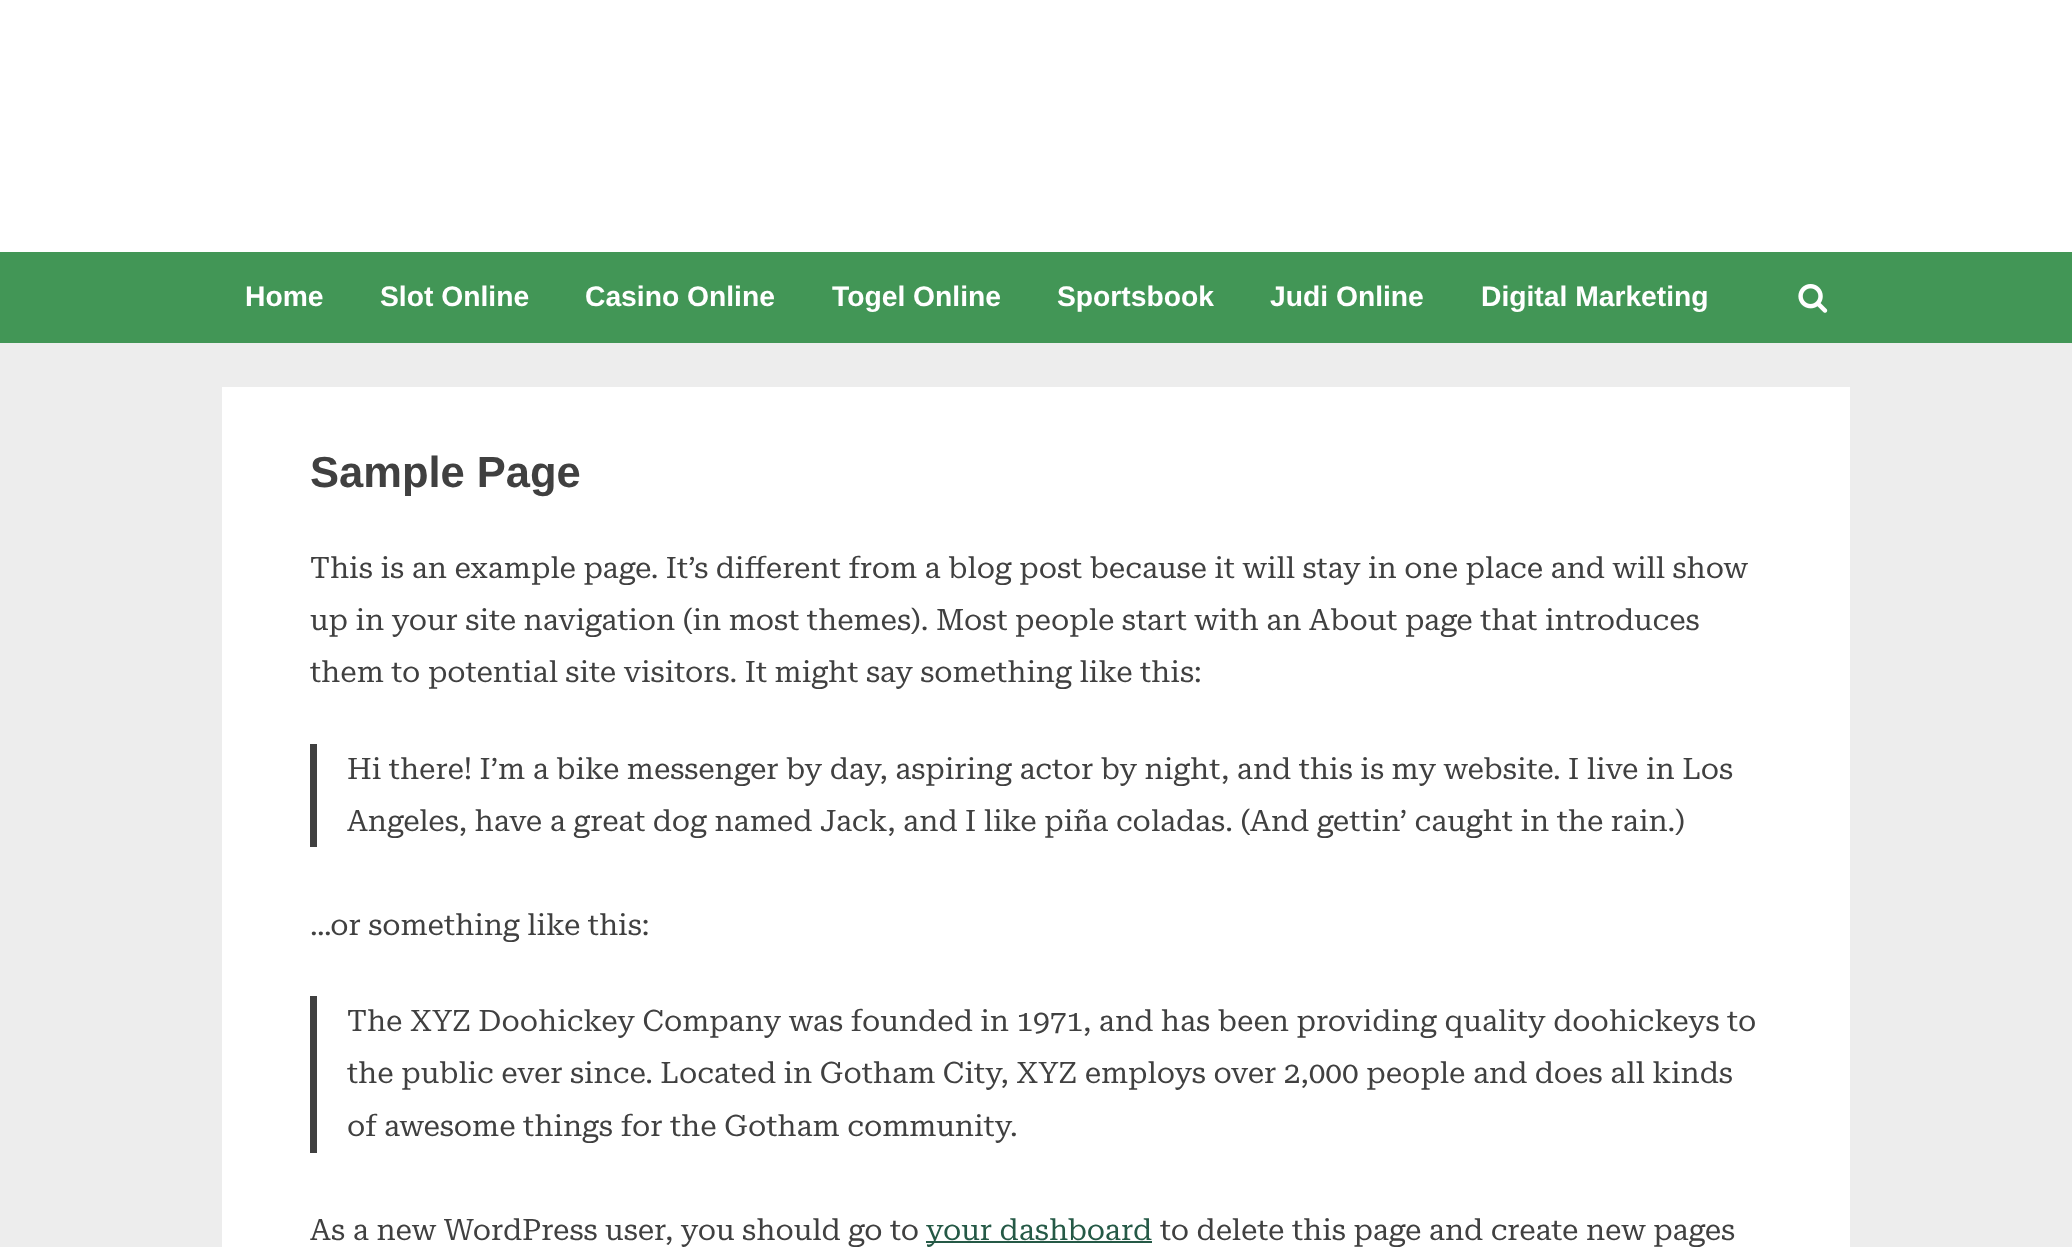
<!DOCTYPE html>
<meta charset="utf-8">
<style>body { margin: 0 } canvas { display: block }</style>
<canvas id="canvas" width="2072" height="1247"></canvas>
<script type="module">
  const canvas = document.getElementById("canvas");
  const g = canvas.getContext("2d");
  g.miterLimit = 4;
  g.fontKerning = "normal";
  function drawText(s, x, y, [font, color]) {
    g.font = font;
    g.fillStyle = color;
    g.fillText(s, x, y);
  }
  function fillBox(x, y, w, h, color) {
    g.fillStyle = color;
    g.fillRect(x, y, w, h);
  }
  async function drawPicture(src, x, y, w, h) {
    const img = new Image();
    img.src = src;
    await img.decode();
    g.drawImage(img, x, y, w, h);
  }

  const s1 = ["bold 28.25px Liberation Sans", "#FFFFFF"];
  const s2 = ["bold 43.5px Liberation Sans", "#404040"];
  const s3 = ["29.75px Roboto Serif", "#404040"];
  const s4 = ["29.75px Roboto Serif", "#255946"];

  fillBox(0, 0, 2072, 1247, "#EDEDED");
  fillBox(0, 0, 2072, 252, "#FFFFFF");
  fillBox(0, 252, 2072, 91, "#429656");
  drawText("Home", 245, 306, s1);
  drawText("Slot Online", 380, 306, s1);
  drawText("Casino Online", 585, 306, s1);
  drawText("Togel Online", 832, 306, s1);
  drawText("Sportsbook", 1057, 306, s1);
  drawText("Judi Online", 1270, 306, s1);
  drawText("Digital Marketing", 1481, 306, s1);
  await drawPicture("pic1.png", 1798, 284, 30, 29);
  fillBox(222, 387, 1628, 860, "#FFFFFF");
  drawText("Sample Page", 310, 487, s2);
  drawText("This is an example page. It’s different from a blog post because it will stay in one place and will show", 310, 578, s3);
  drawText("up in your site navigation (in most themes). Most people start with an About page that introduces", 310, 630, s3);
  drawText("them to potential site visitors. It might say something like this:", 310, 682, s3);
  fillBox(310, 744, 7, 103, "#404040");
  drawText("Hi there! I’m a bike messenger by day, aspiring actor by night, and this is my website. I live in Los", 347, 779, s3);
  drawText("Angeles, have a great dog named Jack, and I like piña coladas. (And gettin’ caught in the rain.)", 347, 831, s3);
  drawText("…or something like this:", 310, 935, s3);
  fillBox(310, 996, 7, 157, "#404040");
  drawText("The XYZ Doohickey Company was founded in 1971, and has been providing quality doohickeys to", 347, 1031, s3);
  drawText("the public ever since. Located in Gotham City, XYZ employs over 2,000 people and does all kinds", 347, 1083, s3);
  drawText("of awesome things for the Gotham community.", 347, 1136, s3);
  drawText("As a new WordPress user, you should go to", 310, 1240, s3);
  fillBox(926, 1241, 226, 2, "#255946");
  drawText("your dashboard", 926, 1240, s4);
  drawText("to delete this page and create new pages", 1160, 1240, s3);
</script>
